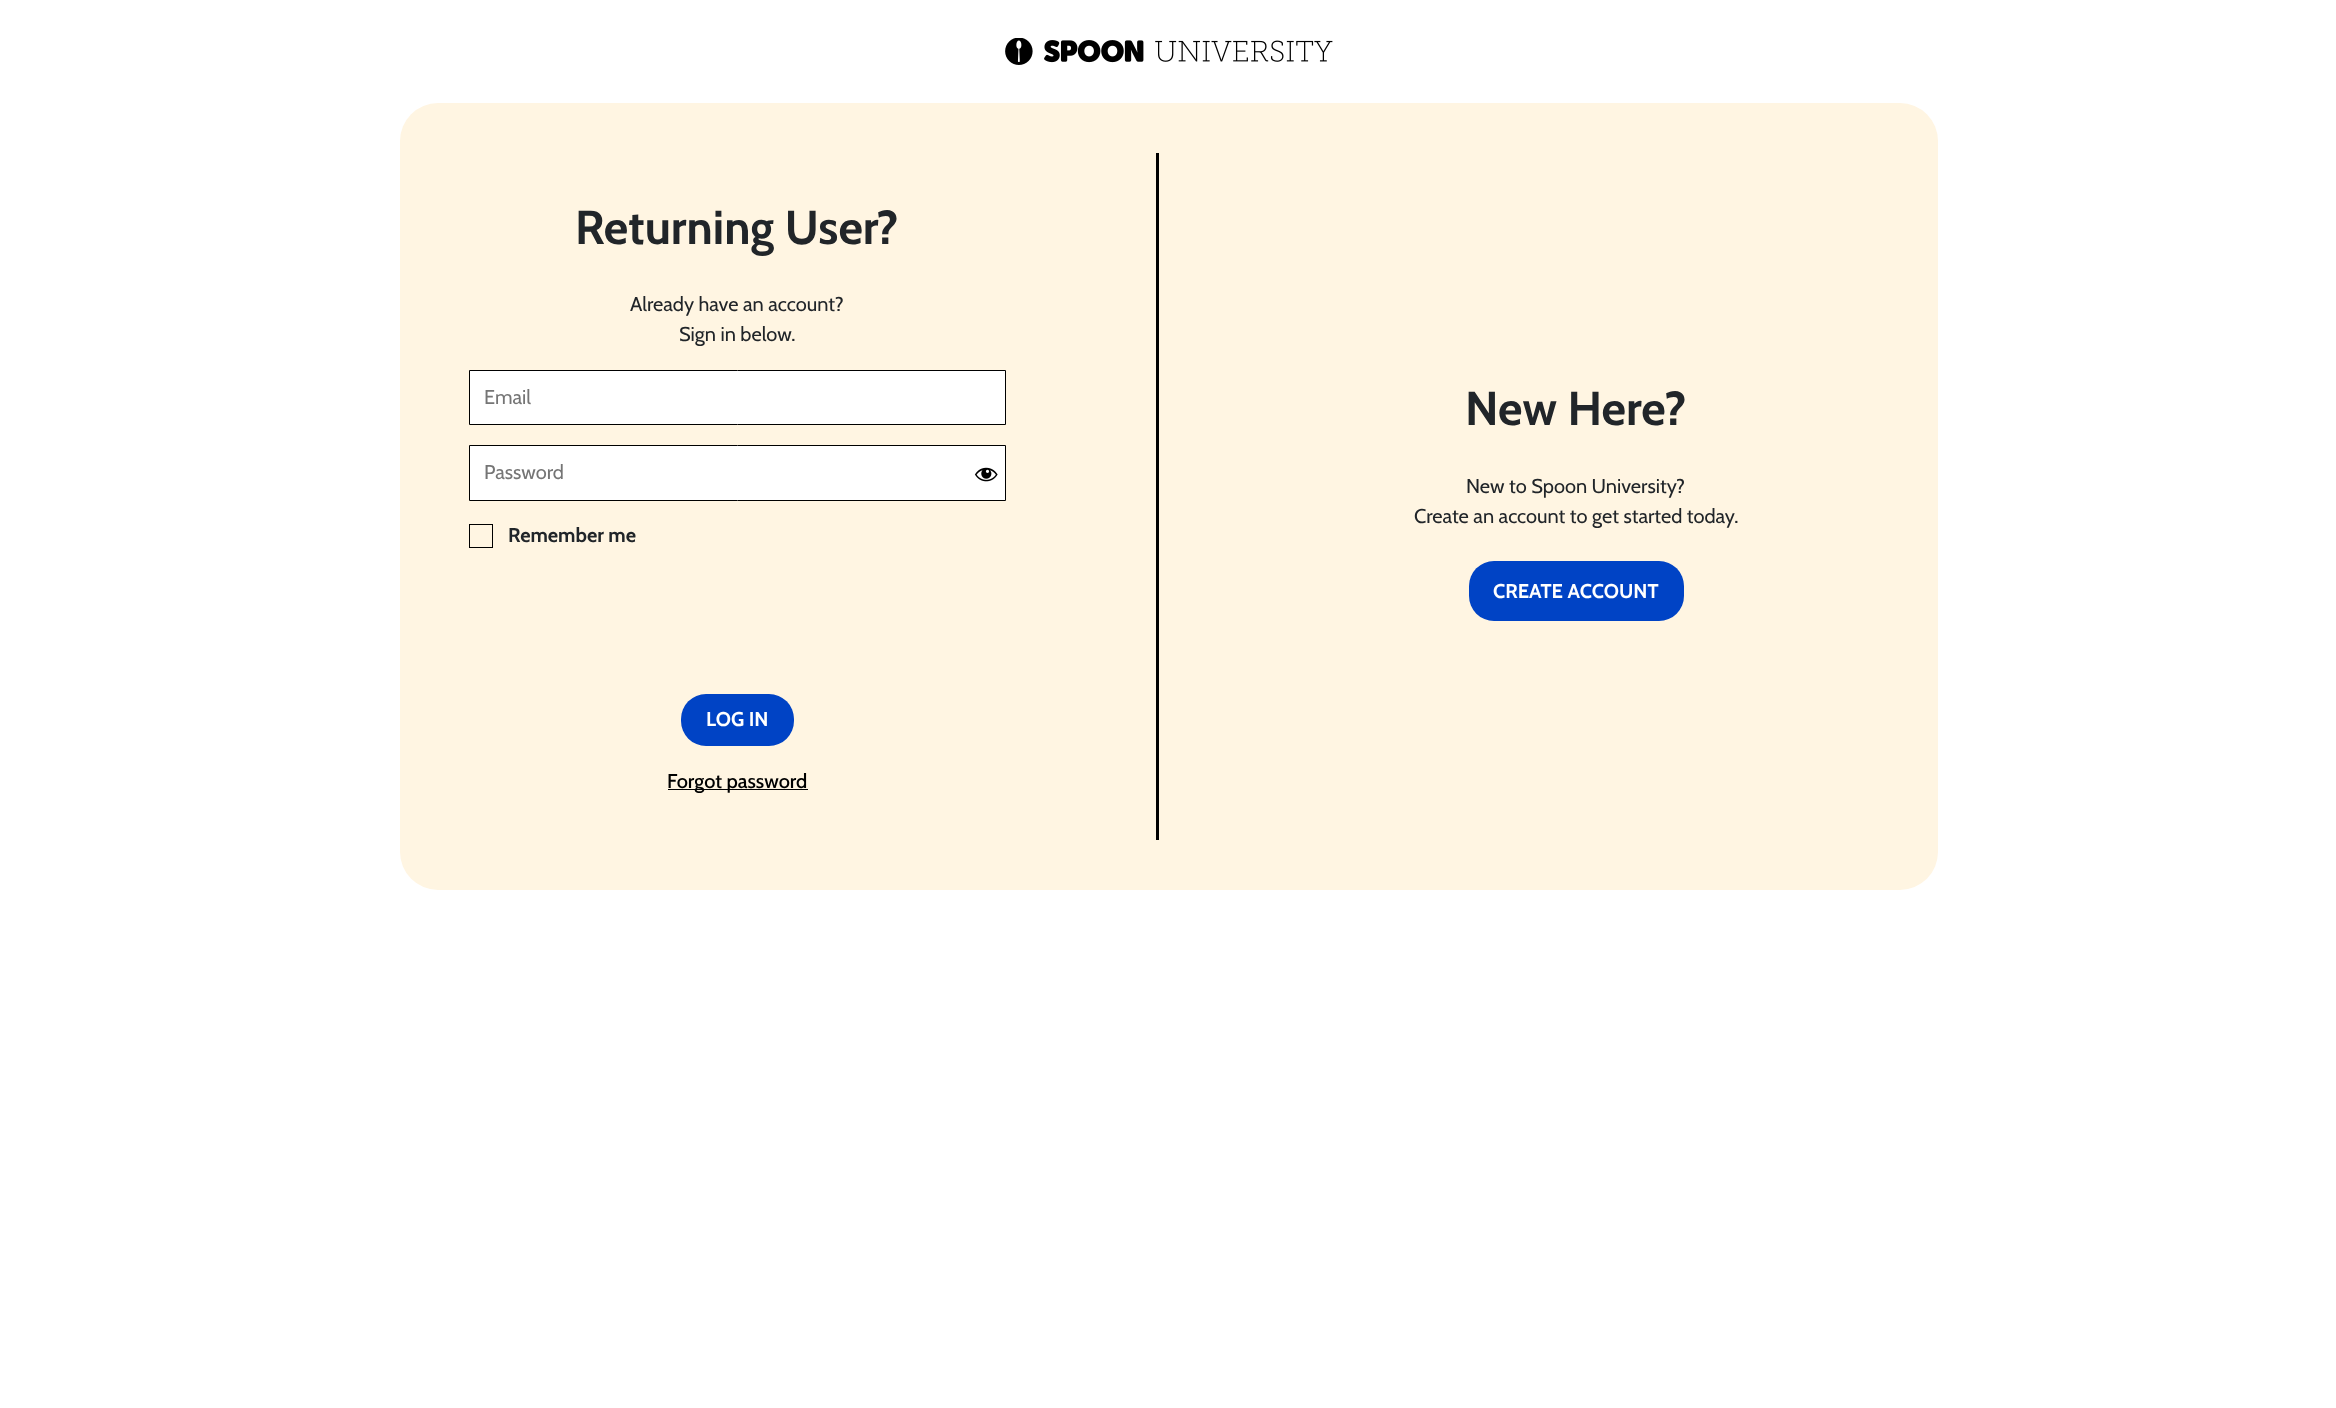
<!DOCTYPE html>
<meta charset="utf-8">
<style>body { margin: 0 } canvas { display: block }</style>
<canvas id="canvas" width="2336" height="1408"></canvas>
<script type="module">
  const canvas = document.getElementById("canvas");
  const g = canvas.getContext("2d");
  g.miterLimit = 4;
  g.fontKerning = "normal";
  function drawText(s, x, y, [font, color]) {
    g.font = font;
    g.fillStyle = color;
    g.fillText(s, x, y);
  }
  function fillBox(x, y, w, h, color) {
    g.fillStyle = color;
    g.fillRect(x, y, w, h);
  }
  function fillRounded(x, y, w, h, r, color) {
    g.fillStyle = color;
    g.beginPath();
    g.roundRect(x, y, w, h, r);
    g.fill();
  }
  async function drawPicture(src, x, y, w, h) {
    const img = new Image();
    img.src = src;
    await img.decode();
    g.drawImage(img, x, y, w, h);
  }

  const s1 = ["bold 47.5px Cabin", "#212529"];
  const s2 = ["20px Cabin", "#212529"];
  const s3 = ["20px Cabin", "#757575"];
  const s4 = ["bold 20px Cabin", "#212529"];
  const s5 = ["bold 20px Cabin", "#FFFFFF"];
  const s6 = ["500 20px Cabin", "#000000"];

  fillBox(0, 0, 2336, 1408, "#FFFFFF");
  await drawPicture("pic1.png", 1005, 38, 328, 27);
  fillRounded(400, 103, 1538, 787, 38, "#FFF5E2");
  fillBox(1156, 153, 3, 687, "#000000");
  drawText("Returning User?", 575, 244, s1);
  drawText("Already have an account?", 630, 311, s2);
  drawText("Sign in below.", 679, 341, s2);
  g.fillStyle = "#FFFFFF";
  g.beginPath();
  g.rect(469.5, 370.5, 536, 54);
  g.fill();
  g.strokeStyle = "#000000";
  g.stroke();
  drawText("Email", 484, 404, s3);
  g.fillStyle = "#FFFFFF";
  g.beginPath();
  g.rect(469.5, 445.5, 536, 55);
  g.fill();
  g.stroke();
  drawText("Password", 484, 479, s3);
  await drawPicture("pic2.png", 974, 467, 24, 15);
  g.strokeRect(469.5, 524.5, 23, 23);
  drawText("Remember me", 508, 542, s4);
  fillRounded(681, 694, 113, 52, 25, "#0043C5");
  drawText("LOG IN", 706, 726, s5);
  fillBox(668, 789, 140, 1, "#000000");
  drawText("Forgot password", 667, 788, s6);
  drawText("New Here?", 1465, 425, s1);
  drawText("New to Spoon University?", 1466, 493, s2);
  drawText("Create an account to get started today.", 1414, 523, s2);
  fillRounded(1469, 561, 215, 60, 25, "#0043C5");
  drawText("CREATE ACCOUNT", 1493, 598, s5);
</script>
